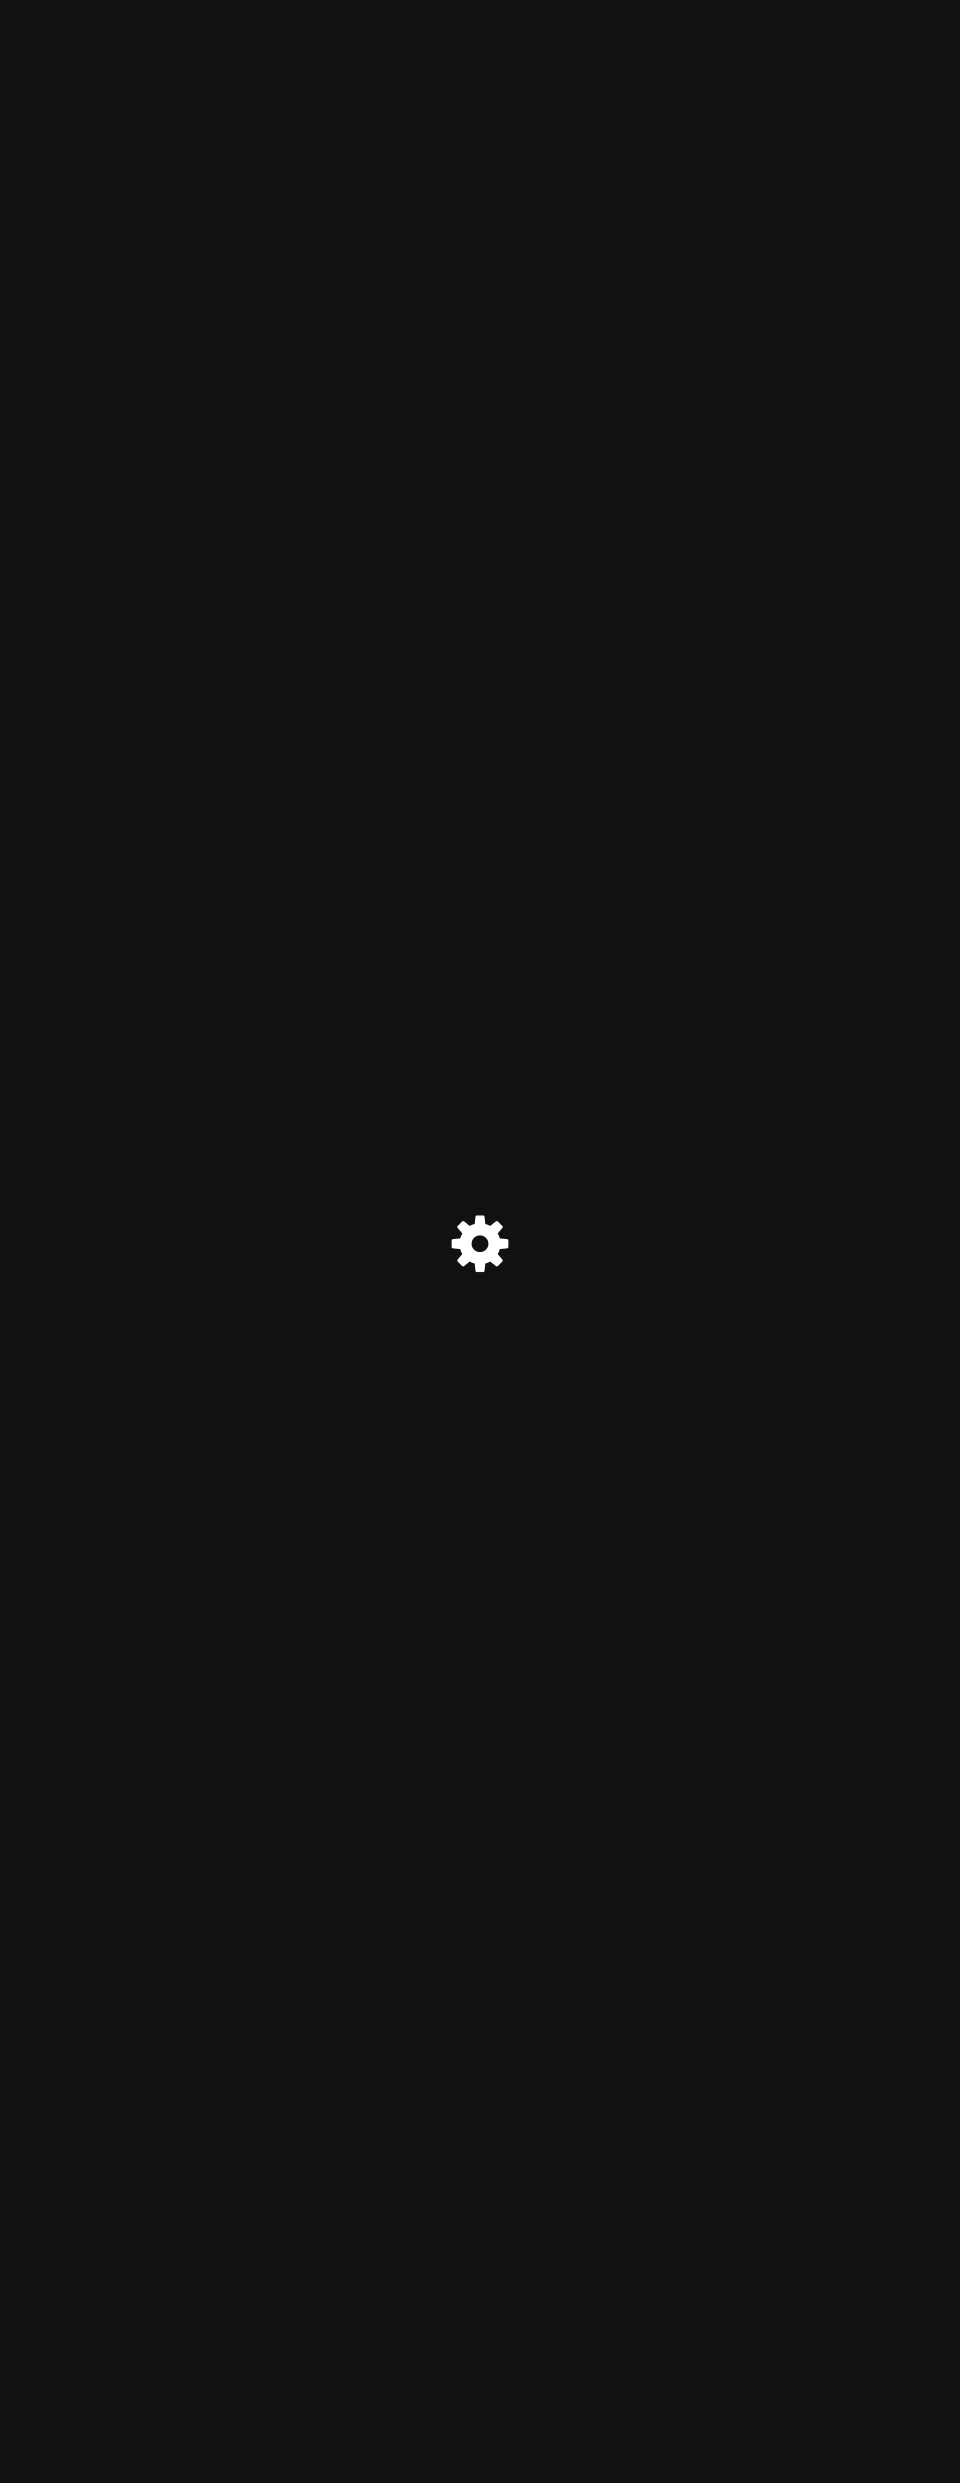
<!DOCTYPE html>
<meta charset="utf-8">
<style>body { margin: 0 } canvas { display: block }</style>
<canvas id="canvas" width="960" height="2483"></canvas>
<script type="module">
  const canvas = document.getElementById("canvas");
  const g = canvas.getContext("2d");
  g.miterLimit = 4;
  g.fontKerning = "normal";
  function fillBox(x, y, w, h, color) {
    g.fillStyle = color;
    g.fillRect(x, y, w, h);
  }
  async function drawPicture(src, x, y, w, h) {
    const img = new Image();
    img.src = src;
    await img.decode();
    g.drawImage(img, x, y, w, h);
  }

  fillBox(0, 0, 960, 2483, "#111111");
  await drawPicture("pic1.png", 451, 1215, 58, 58);
</script>
